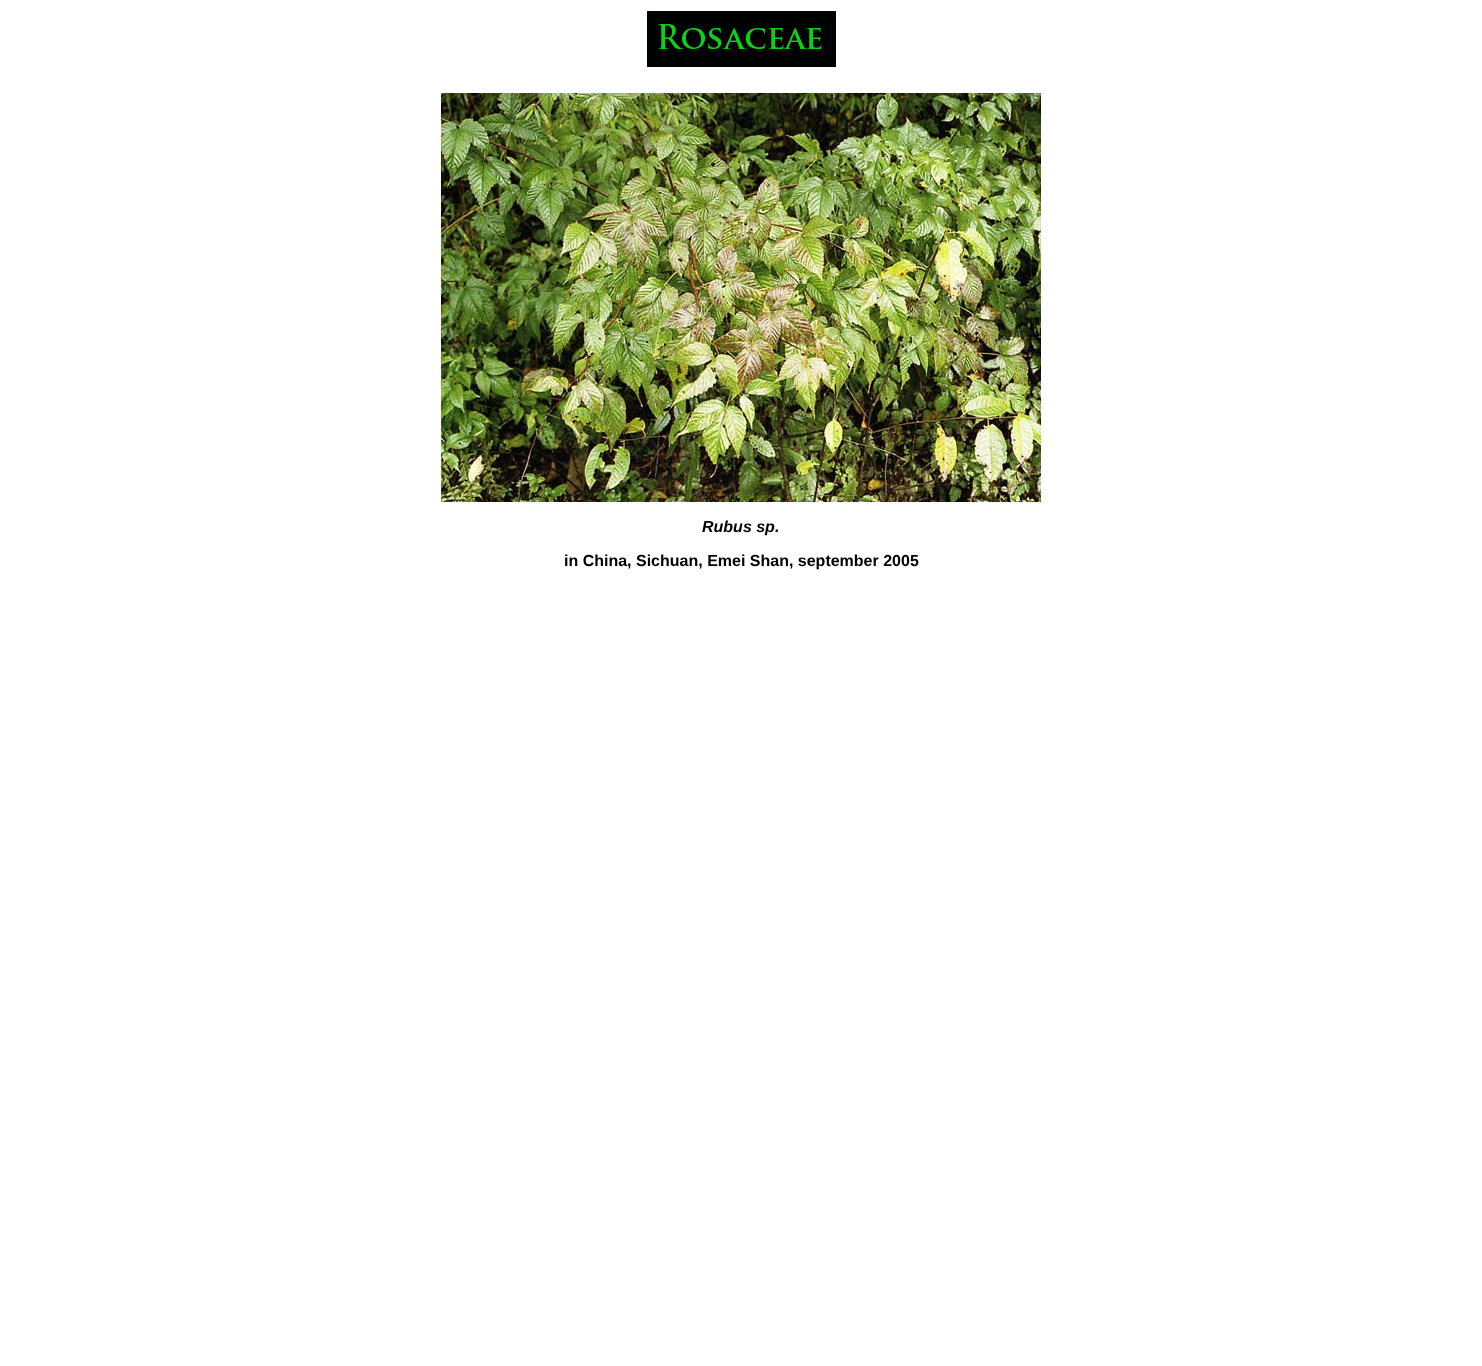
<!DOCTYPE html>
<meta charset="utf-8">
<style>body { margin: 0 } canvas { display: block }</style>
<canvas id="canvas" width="1482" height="1366"></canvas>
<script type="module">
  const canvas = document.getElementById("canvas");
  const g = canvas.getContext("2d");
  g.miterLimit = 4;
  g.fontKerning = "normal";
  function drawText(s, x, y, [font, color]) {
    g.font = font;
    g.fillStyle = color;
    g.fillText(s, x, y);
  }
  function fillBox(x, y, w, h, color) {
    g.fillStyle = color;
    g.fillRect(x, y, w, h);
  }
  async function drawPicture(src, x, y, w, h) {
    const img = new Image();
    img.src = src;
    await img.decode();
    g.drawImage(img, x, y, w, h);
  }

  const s1 = ["italic bold 16px Liberation Sans", "#000000"];
  const s2 = ["bold 16px Liberation Sans", "#000000"];

  fillBox(0, 0, 1482, 1366, "#FFFFFF");
  await drawPicture("pic1.png", 647, 11, 189, 56);
  await drawPicture("pic2.png", 441, 93, 600, 409);
  drawText("Rubus sp.", 702, 532, s1);
  drawText("in China, Sichuan, Emei Shan, september 2005", 564, 566, s2);
</script>
